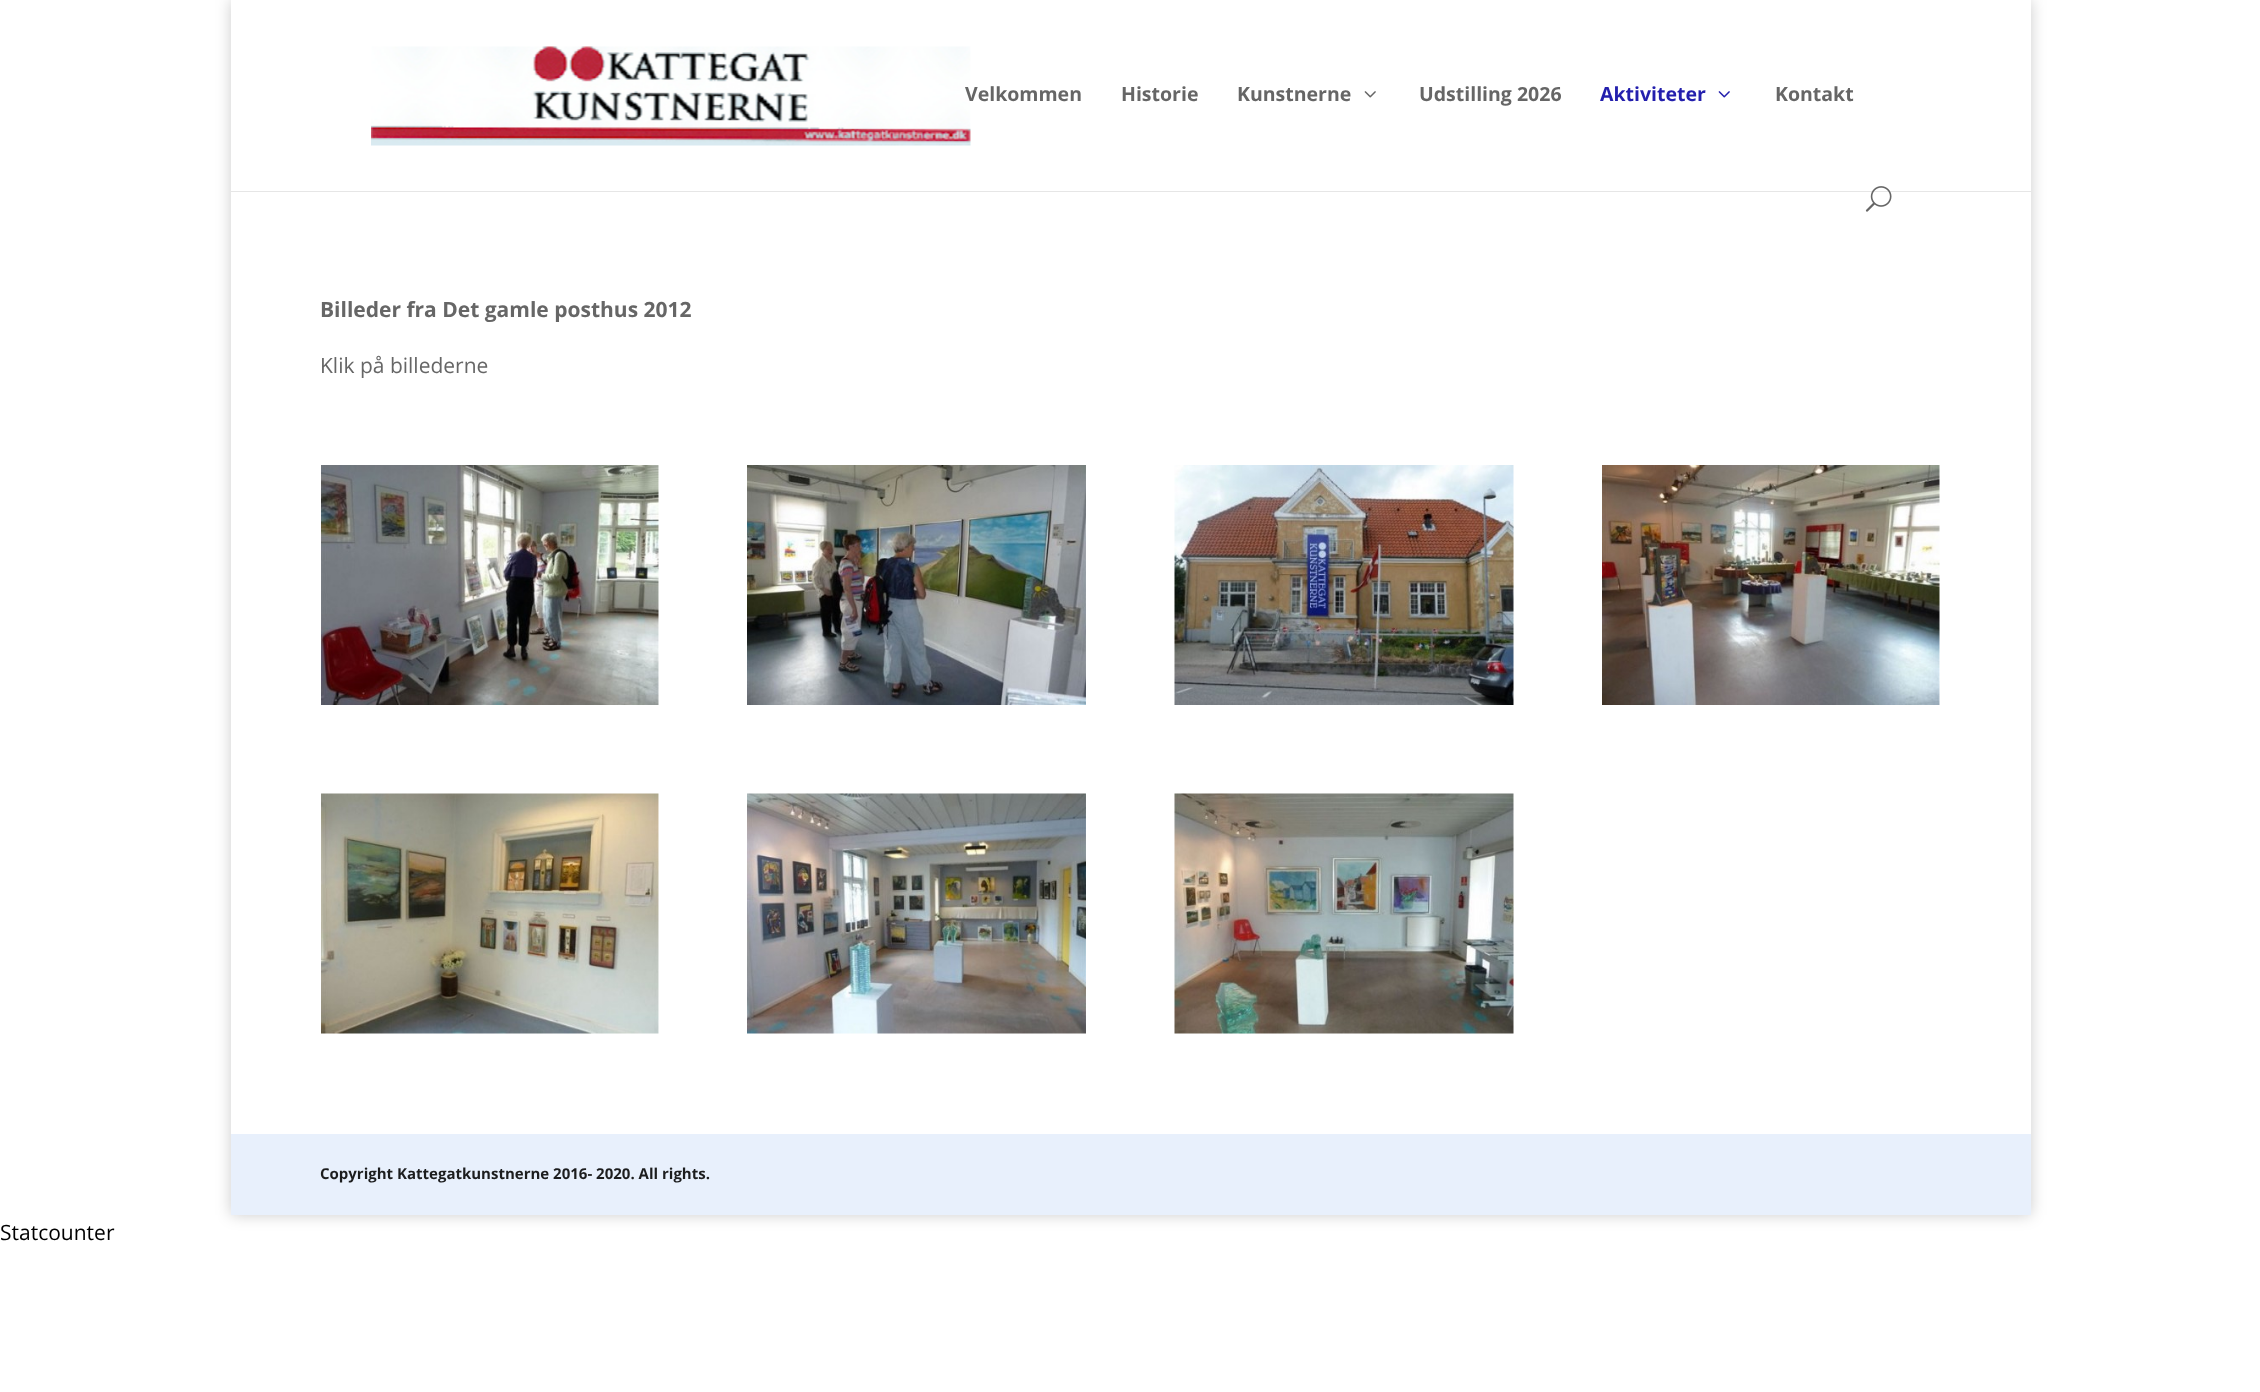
<!DOCTYPE html>
<meta charset="utf-8">
<style>body { margin: 0 } canvas { display: block }</style>
<canvas id="canvas" width="2260" height="1392"></canvas>
<script type="module">
  const canvas = document.getElementById("canvas");
  const g = canvas.getContext("2d");
  g.miterLimit = 4;
  g.fontKerning = "normal";
  function drawText(s, x, y, [font, color]) {
    g.font = font;
    g.fillStyle = color;
    g.fillText(s, x, y);
  }
  function fillBox(x, y, w, h, color) {
    g.fillStyle = color;
    g.fillRect(x, y, w, h);
  }
  async function drawPicture(src, x, y, w, h) {
    const img = new Image();
    img.src = src;
    await img.decode();
    g.drawImage(img, x, y, w, h);
  }

  const s1 = ["bold 19.5px Open Sans", "#666666"];
  const s2 = ["bold 19.5px Open Sans", "#231FAD"];
  const s3 = ["bold 21px Open Sans", "#666666"];
  const s4 = ["21px Open Sans", "#666666"];
  const s5 = ["bold 15px Open Sans", "#1C1D1E"];
  const s6 = ["21px Open Sans", "#000000"];

  fillBox(0, 0, 2260, 1392, "#FFFFFF");
  g.save();
  g.beginPath();
  g.moveTo(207, 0);
  g.lineTo(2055, 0);
  g.lineTo(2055, 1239);
  g.lineTo(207, 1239);
  g.closePath();
  g.moveTo(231, 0);
  g.lineTo(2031, 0);
  g.lineTo(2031, 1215);
  g.lineTo(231, 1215);
  g.closePath();
  g.clip("evenodd");
  g.fillStyle = "rgba(0, 0, 0, 0.2)";
  g.filter = "blur(7.5px)";
  g.beginPath();
  g.rect(231, 0, 1800, 1215);
  g.fill();
  g.filter = "none";
  g.restore();
  fillBox(231, 191, 1800, 1, "#E6E6E6");
  await drawPicture("pic1.png", 371, 46, 600, 100);
  drawText("Velkommen", 965, 101, s1);
  drawText("Historie", 1121, 101, s1);
  drawText("Kunstnerne", 1237, 101, s1);
  await drawPicture("pic2.png", 1364, 91, 12, 7);
  drawText("Udstilling 2026", 1419, 101, s1);
  drawText("Aktiviteter", 1600, 101, s2);
  await drawPicture("pic3.png", 1718, 91, 12, 7);
  drawText("Kontakt", 1775, 101, s1);
  await drawPicture("pic4.png", 1865, 186, 27, 26);
  drawText("Billeder fra Det gamle posthus 2012", 320, 317, s3);
  drawText("Klik på billederne", 320, 373, s4);
  await drawPicture("pic5.png", 321, 465, 338, 240);
  await drawPicture("pic6.png", 747, 465, 339, 240);
  await drawPicture("pic7.png", 1174, 465, 340, 240);
  await drawPicture("pic8.png", 1602, 465, 338, 240);
  await drawPicture("pic9.png", 321, 793, 338, 241);
  await drawPicture("pic10.png", 747, 793, 339, 241);
  await drawPicture("pic11.png", 1174, 793, 340, 241);
  fillBox(231, 1134, 1800, 81, "#E8F0FC");
  drawText("Copyright Kattegatkunstnerne 2016- 2020. All rights.", 320, 1179, s5);
  drawText("Statcounter", 0, 1240, s6);
</script>
